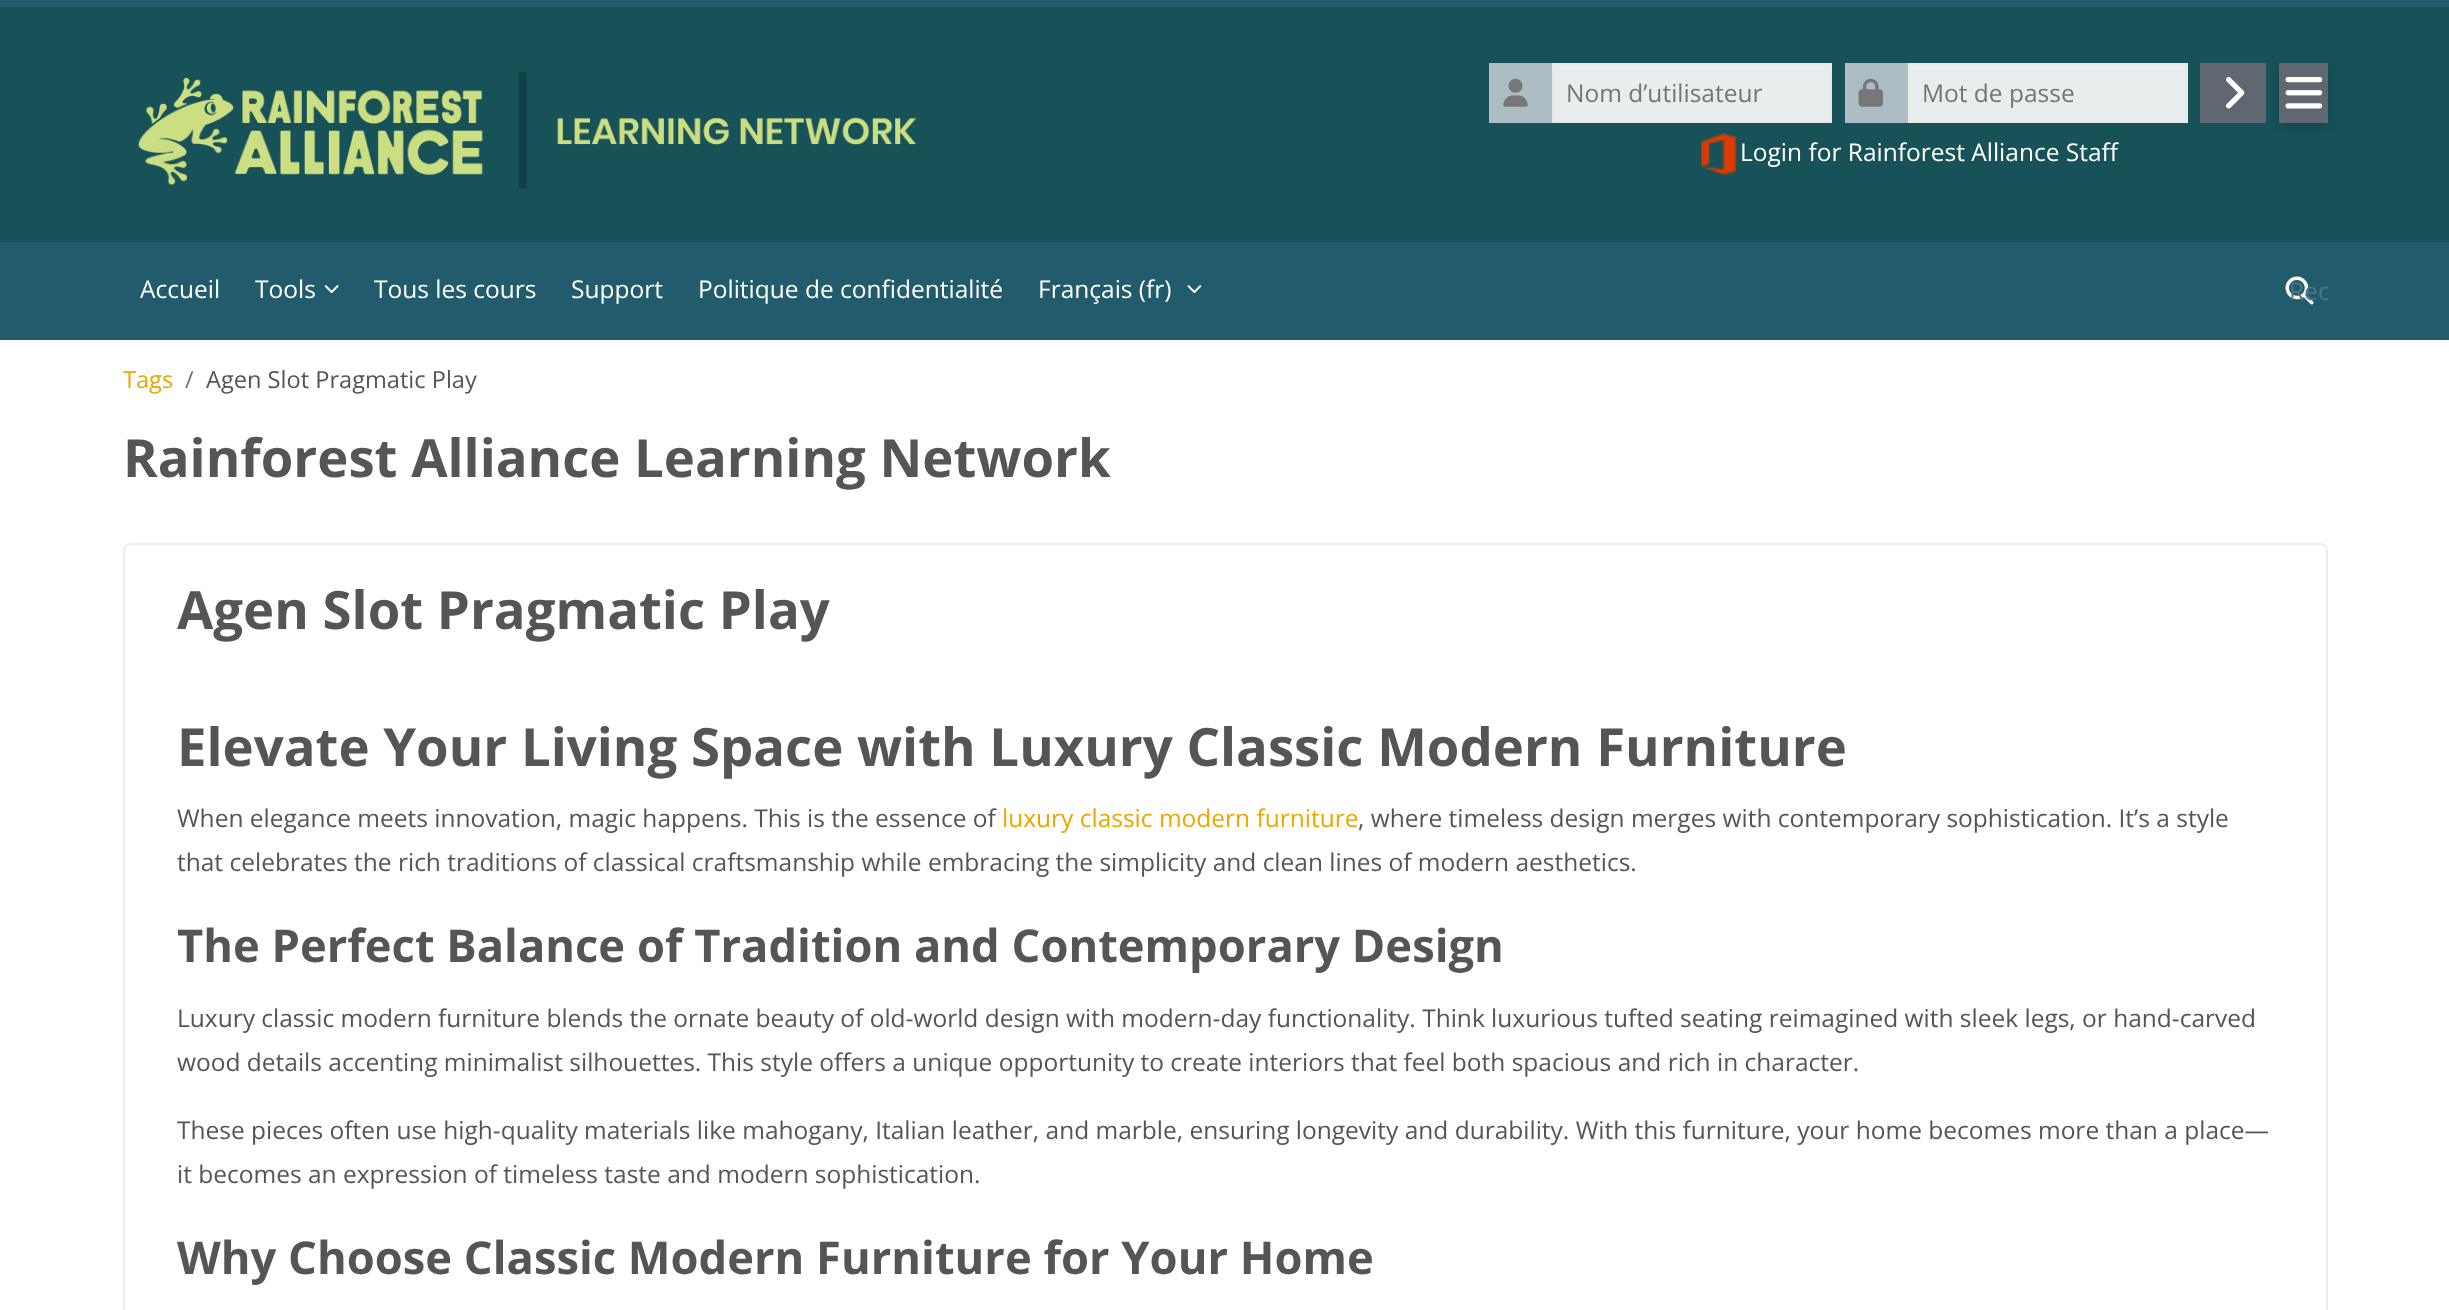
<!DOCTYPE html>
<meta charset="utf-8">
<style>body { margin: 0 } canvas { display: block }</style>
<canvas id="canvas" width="2449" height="1310"></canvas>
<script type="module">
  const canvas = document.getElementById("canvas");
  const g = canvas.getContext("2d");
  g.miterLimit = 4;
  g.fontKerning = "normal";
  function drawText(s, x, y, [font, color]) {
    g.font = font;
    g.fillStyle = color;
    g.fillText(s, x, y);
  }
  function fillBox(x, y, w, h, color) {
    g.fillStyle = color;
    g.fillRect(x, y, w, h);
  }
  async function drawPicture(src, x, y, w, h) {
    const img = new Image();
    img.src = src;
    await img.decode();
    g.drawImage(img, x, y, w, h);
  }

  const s1 = ["24.5px Open Sans", "#757575"];
  const s2 = ["24.5px Open Sans", "#FFFFFF"];
  const s3 = ["24.5px Open Sans", "#4A7986"];
  const s4 = ["23.6px Open Sans", "#EBA600"];
  const s5 = ["23.6px Open Sans", "#6C757D"];
  const s6 = ["23.6px Open Sans", "#555555"];
  const s7 = ["bold 52.7px Open Sans", "#555555"];
  const s8 = ["24.5px Open Sans", "#555555"];
  const s9 = ["24.5px Open Sans", "#EBA600"];
  const s10 = ["bold 45.3px Open Sans", "#555555"];

  fillBox(0, 0, 2449, 1310, "#FFFFFF");
  fillBox(0, 0, 2449, 7, "#225B6B");
  fillBox(0, 7, 2449, 235, "#175259");
  await drawPicture("pic1.png", 137, 72, 780, 117);
  fillBox(1489, 63, 63, 60, "#ACBEC3");
  await drawPicture("pic2.png", 1503, 78, 25, 29);
  g.fillStyle = "#E8EEEE";
  g.beginPath();
  g.rect(1553, 64, 278, 58);
  g.fill();
  g.strokeStyle = "#E9E9E9";
  g.lineWidth = 2;
  g.stroke();
  drawText("Nom d’utilisateur", 1566, 102, s1);
  fillBox(1845, 63, 63, 60, "#ACBEC3");
  await drawPicture("pic3.png", 1858, 78, 25, 29);
  g.fillStyle = "#E8EEEE";
  g.beginPath();
  g.rect(1909, 64, 278, 58);
  g.fill();
  g.stroke();
  drawText("Mot de passe", 1922, 102, s1);
  fillBox(2200, 63, 66, 60, "#5F6870");
  await drawPicture("pic4.png", 2226, 77, 19, 32);
  g.fillStyle = "rgba(0, 0, 0, 0.16)";
  g.filter = "blur(4.5px)";
  g.beginPath();
  g.rect(2279, 67, 49, 59);
  g.fill();
  g.filter = "none";
  fillBox(2279, 63, 49, 60, "#5F6870");
  await drawPicture("pic5.png", 2285, 77, 38, 32);
  await drawPicture("pic6.png", 1700, 133, 37, 42);
  drawText("Login for Rainforest Alliance Staff", 1740, 161, s2);
  fillBox(0, 242, 2449, 98, "#225B6B");
  drawText("Accueil", 140, 298, s2);
  drawText("Tools", 255, 298, s2);
  await drawPicture("pic7.png", 324, 285, 15, 8);
  drawText("Tous les cours", 374, 298, s2);
  drawText("Support", 571, 298, s2);
  drawText("Politique de confidentialité", 698, 298, s2);
  drawText("Français (fr)", 1038, 298, s2);
  await drawPicture("pic8.png", 1187, 285, 15, 8);
  await drawPicture("pic9.png", 2285, 276, 29, 29);
  g.save();
  g.beginPath();
  g.rect(2289, 273, 39, 33);
  g.clip();
  drawText("Rec", 2289, 300, s3);
  g.restore();
  drawText("Tags", 123, 388, s4);
  drawText("/", 185, 388, s5);
  drawText("Agen Slot Pragmatic Play", 206, 388, s6);
  drawText("Rainforest Alliance Learning Network", 123, 477, s7);
  g.beginPath();
  g.roundRect(124, 544, 2203, 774, 6);
  g.strokeStyle = "#ECECEC";
  g.stroke();
  drawText("Agen Slot Pragmatic Play", 177, 629, s7);
  drawText("Elevate Your Living Space with Luxury Classic Modern Furniture", 177, 766, s7);
  drawText("When elegance meets innovation, magic happens. This is the essence of", 177, 827, s8);
  drawText("luxury classic modern furniture", 1002, 827, s9);
  drawText(", where timeless design merges with contemporary sophistication. It’s a style", 1358, 827, s8);
  drawText("that celebrates the rich traditions of classical craftsmanship while embracing the simplicity and clean lines of modern aesthetics.", 177, 871, s8);
  drawText("The Perfect Balance of Tradition and Contemporary Design", 177, 962, s10);
  drawText("Luxury classic modern furniture blends the ornate beauty of old-world design with modern-day functionality. Think luxurious tufted seating reimagined with sleek legs, or hand-carved", 177, 1027, s8);
  drawText("wood details accenting minimalist silhouettes. This style offers a unique opportunity to create interiors that feel both spacious and rich in character.", 177, 1071, s8);
  drawText("These pieces often use high-quality materials like mahogany, Italian leather, and marble, ensuring longevity and durability. With this furniture, your home becomes more than a place—", 177, 1139, s8);
  drawText("it becomes an expression of timeless taste and modern sophistication.", 177, 1183, s8);
  drawText("Why Choose Classic Modern Furniture for Your Home", 177, 1274, s10);
</script>
